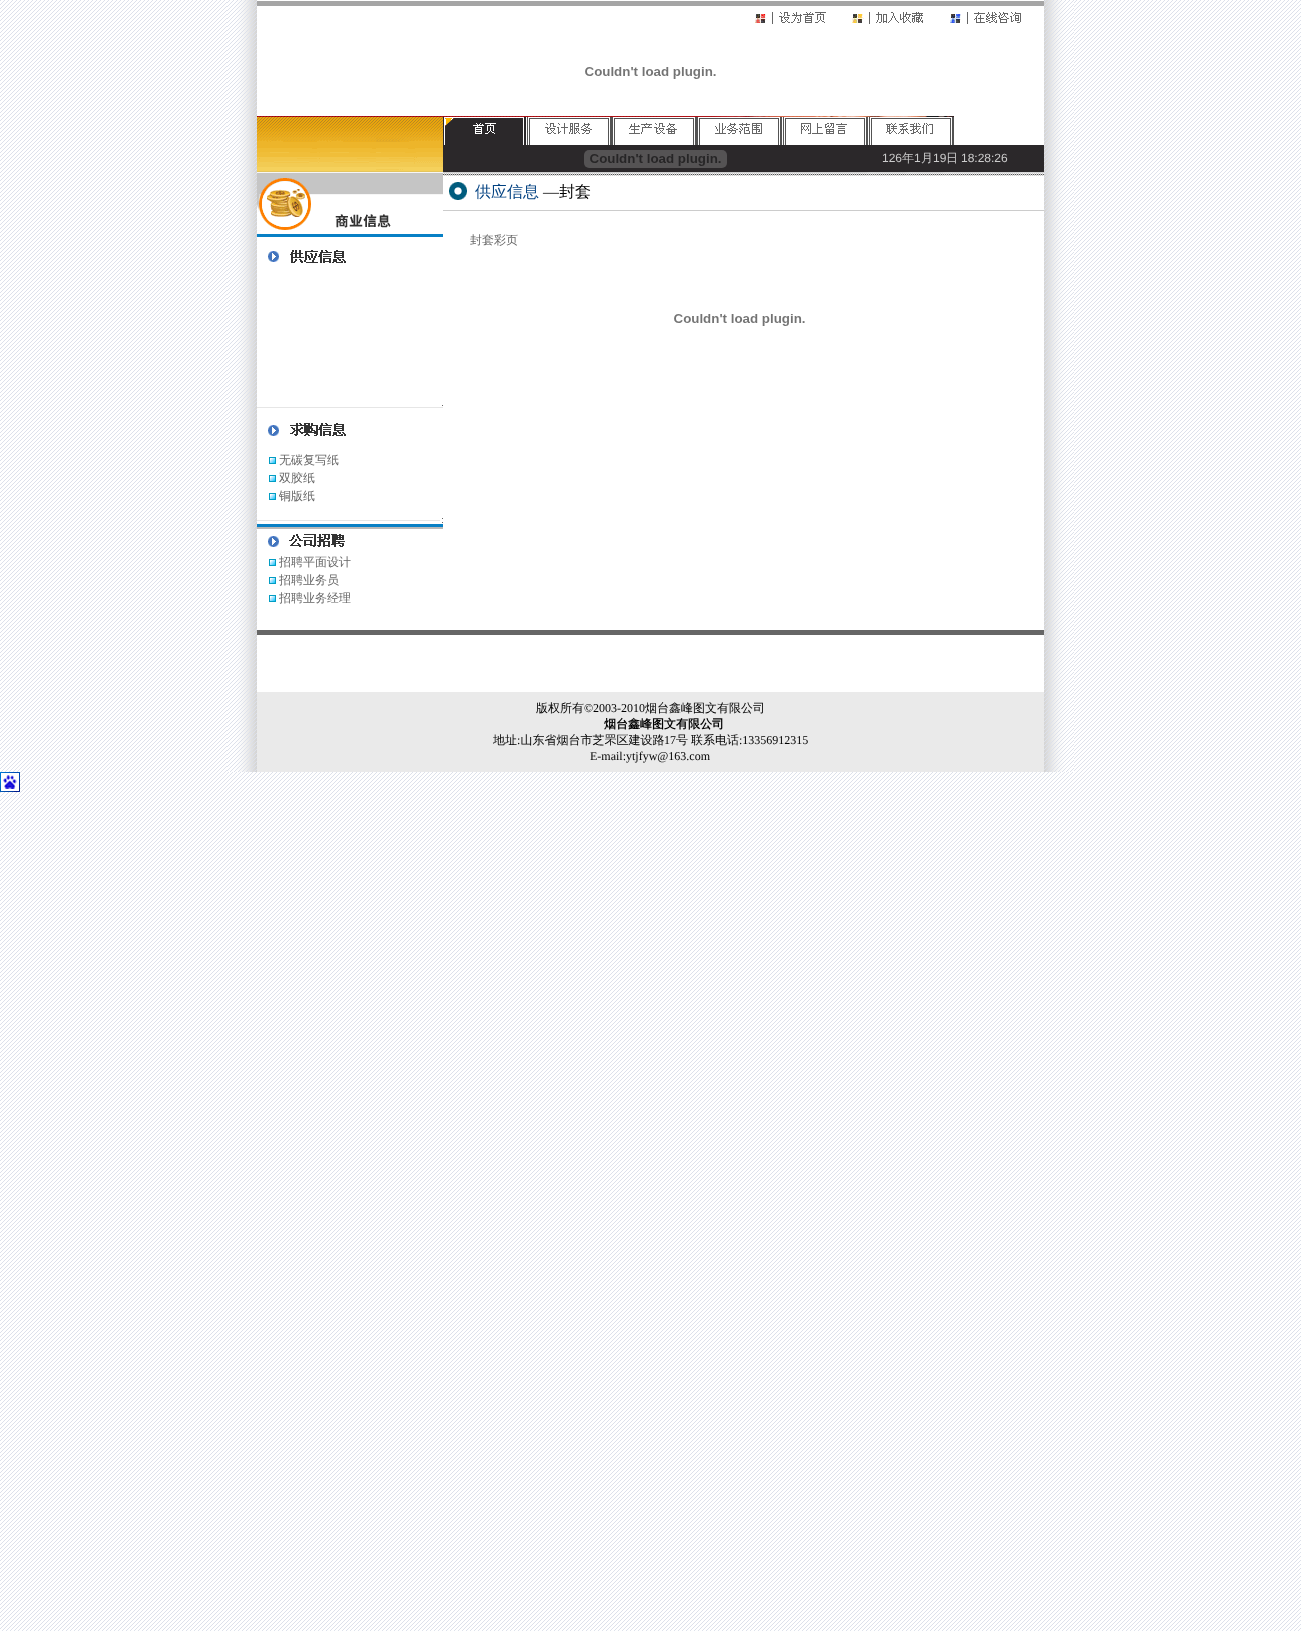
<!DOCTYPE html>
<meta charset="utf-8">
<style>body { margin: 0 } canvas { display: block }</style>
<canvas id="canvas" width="1301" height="1631"></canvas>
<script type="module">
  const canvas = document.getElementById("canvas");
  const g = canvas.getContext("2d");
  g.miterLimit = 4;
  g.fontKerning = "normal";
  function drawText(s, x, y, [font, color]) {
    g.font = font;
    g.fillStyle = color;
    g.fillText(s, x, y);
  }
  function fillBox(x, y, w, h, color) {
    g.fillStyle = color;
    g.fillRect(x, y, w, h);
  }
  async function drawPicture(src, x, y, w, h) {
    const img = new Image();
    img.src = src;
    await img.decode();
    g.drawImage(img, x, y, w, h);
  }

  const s1 = ["12px Liberation Sans", "#CCCCCC"];
  const s2 = ["500 12px WenQuanYi Zen Hei", "#CCCCCC"];
  const s3 = ["500 16px WenQuanYi Zen Hei", "#004080"];
  const s4 = ["16px Liberation Serif", "#000000"];
  const s5 = ["500 16px WenQuanYi Zen Hei", "#000000"];
  const s6 = ["500 12px WenQuanYi Zen Hei", "#666666"];
  const s7 = ["500 12px WenQuanYi Zen Hei", "#000000"];
  const s8 = ["12px Liberation Serif", "#000000"];
  const s9 = ["bold 12px WenQuanYi Zen Hei", "#000000"];

  fillBox(0, 0, 1301, 1631, "#FFFFFF");
  await drawPicture("pic1.png", 0, 0, 1301, 1631);
  await drawPicture("pic2.png", 227, 0, 847, 772);
  fillBox(257, 0, 787, 692, "#FFFFFF");
  fillBox(257, 1, 787, 5, "#A5A5A5");
  await drawPicture("pic3.png", 755, 12, 71, 12);
  await drawPicture("pic4.png", 852, 12, 71, 12);
  await drawPicture("pic5.png", 950, 12, 71, 12);
  await drawPicture("pic6.png", 585, 67, 131, 12);
  await drawPicture("pic7.png", 257, 116, 187, 56);
  await drawPicture("pic8.png", 444, 116, 85, 29);
  await drawPicture("pic9.png", 529, 116, 85, 29);
  await drawPicture("pic10.png", 614, 116, 85, 29);
  await drawPicture("pic11.png", 699, 116, 85, 29);
  await drawPicture("pic12.png", 784, 116, 85, 29);
  await drawPicture("pic13.png", 869, 116, 85, 29);
  fillBox(444, 145, 600, 27, "#2B282A");
  await drawPicture("pic14.png", 584, 150, 143, 18);
  drawText("126", 882, 162, s1);
  drawText("年", 902, 162, s2);
  drawText("1", 914, 162, s1);
  drawText("月", 921, 162, s2);
  drawText("19", 933, 162, s1);
  drawText("日", 946, 162, s2);
  drawText("18:28:26", 961, 162, s1);
  await drawPicture("pic15.png", 443, 172, 601, 4);
  await drawPicture("pic16.png", 449, 182, 18, 18);
  drawText("供应信息", 475, 197, s3);
  drawText("—", 543, 197, s4);
  drawText("封套", 559, 197, s5);
  fillBox(443, 210, 601, 1, "#CCCCCC");
  drawText("封套彩页", 470, 244, s6);
  await drawPicture("pic6.png", 674, 314, 131, 12);
  await drawPicture("pic17.png", 257, 172, 186, 65);
  await drawPicture("pic18.png", 257, 178, 134, 56);
  await drawPicture("pic19.png", 268, 250, 78, 13);
  fillBox(442, 405, 1, 1, "#666666");
  await drawPicture("pic20.png", 257, 407, 186, 29);
  await drawPicture("pic21.png", 269, 457, 7, 7);
  drawText("无碳复写纸", 279, 464, s6);
  await drawPicture("pic21.png", 269, 475, 7, 7);
  drawText("双胶纸", 279, 482, s6);
  await drawPicture("pic21.png", 269, 493, 7, 7);
  drawText("铜版纸", 279, 500, s6);
  await drawPicture("pic22.png", 257, 518, 186, 5);
  await drawPicture("pic23.png", 257, 523, 186, 24);
  await drawPicture("pic21.png", 269, 559, 7, 7);
  drawText("招聘平面设计", 279, 566, s6);
  await drawPicture("pic21.png", 269, 577, 7, 7);
  drawText("招聘业务员", 279, 584, s6);
  await drawPicture("pic21.png", 269, 595, 7, 7);
  drawText("招聘业务经理", 279, 602, s6);
  fillBox(257, 630, 787, 5, "#666666");
  fillBox(257, 692, 787, 80, "#EAEAEA");
  drawText("版权所有", 536, 712, s7);
  drawText("©2003-2010", 584, 712, s8);
  drawText("烟台鑫峰图文有限公司", 645, 712, s7);
  drawText("烟台鑫峰图文有限公司", 604, 728, s9);
  drawText("地址 山东省烟台市芝罘区建设路", 493, 744, s7);
  drawText("17", 664, 744, s8);
  drawText("号", 676, 744, s7);
  drawText("联系电话", 691, 744, s7);
  drawText(":13356912315", 739, 744, s8);
  drawText(":", 517, 744, s8);
  drawText("E-mail:ytjfyw@163.com", 590, 760, s8);
  await drawPicture("pic24.png", 0, 772, 20, 20);
</script>
